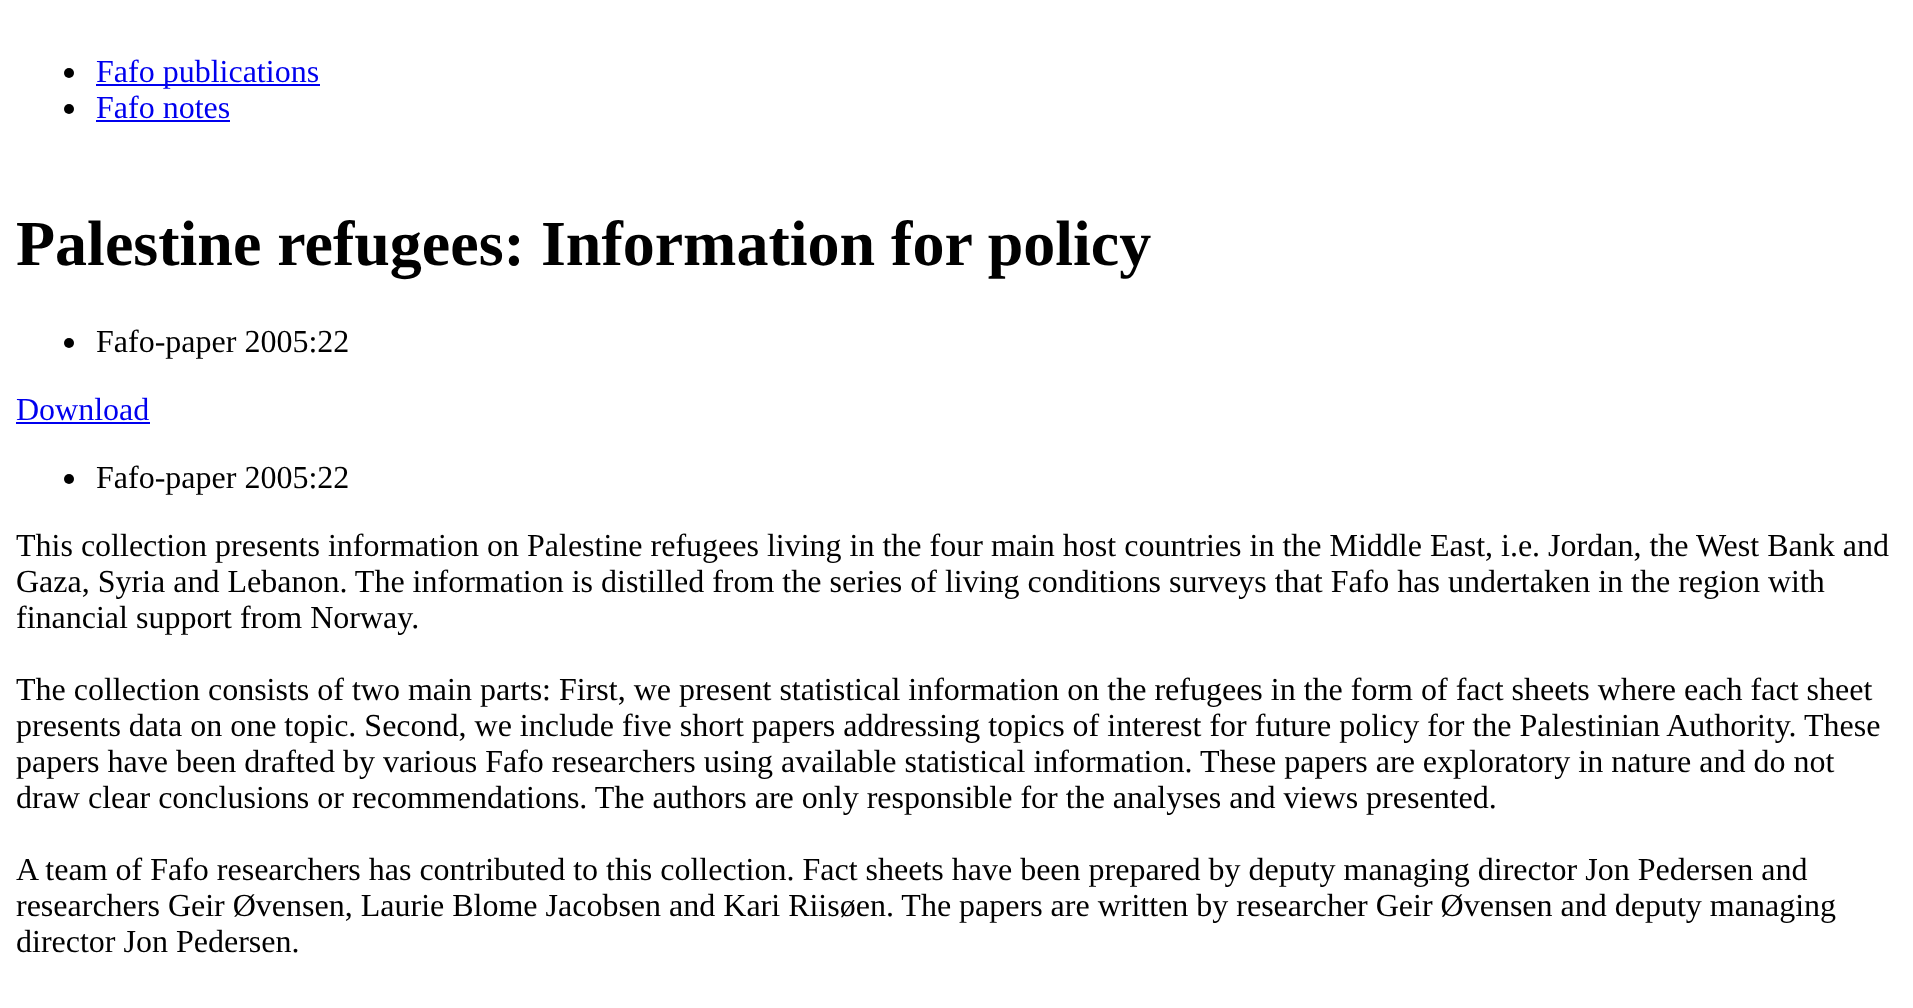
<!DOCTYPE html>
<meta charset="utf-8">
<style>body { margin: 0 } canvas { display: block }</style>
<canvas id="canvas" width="1913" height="1008"></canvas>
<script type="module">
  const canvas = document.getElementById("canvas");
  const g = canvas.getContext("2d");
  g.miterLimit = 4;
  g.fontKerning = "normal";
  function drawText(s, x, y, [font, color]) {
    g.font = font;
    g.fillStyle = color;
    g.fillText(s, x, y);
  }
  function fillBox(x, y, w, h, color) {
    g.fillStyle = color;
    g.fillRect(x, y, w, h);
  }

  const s1 = ["32px Liberation Serif", "#0000EE"];
  const s2 = ["bold 64px Liberation Serif", "#000000"];
  const s3 = ["32px Liberation Serif", "#000000"];

  fillBox(0, 0, 1913, 1008, "#FFFFFF");
  g.fillStyle = "#000000";
  g.beginPath();
  g.arc(69, 73, 5, 0, Math.PI * 2);
  g.fill();
  fillBox(96, 84, 224, 2, "#0000EE");
  drawText("Fafo publications", 96, 82, s1);
  g.fillStyle = "#000000";
  g.beginPath();
  g.arc(69, 109, 5, 0, Math.PI * 2);
  g.fill();
  drawText("Fafo notes", 96, 118, s1);
  fillBox(96, 120, 134, 2, "#0000EE");
  drawText("Palestine refugees: Information for policy", 16, 265, s2);
  g.beginPath();
  g.arc(69, 343, 5, 0, Math.PI * 2);
  g.fill();
  drawText("Fafo-paper 2005:22", 96, 352, s3);
  drawText("Download", 16, 420, s1);
  fillBox(16, 422, 134, 2, "#0000EE");
  g.fillStyle = "#000000";
  g.beginPath();
  g.arc(69, 479, 5, 0, Math.PI * 2);
  g.fill();
  drawText("Fafo-paper 2005:22", 96, 488, s3);
  drawText("This collection presents information on Palestine refugees living in the four main host countries in the Middle East, i.e. Jordan, the West Bank and", 16, 556, s3);
  drawText("Gaza, Syria and Lebanon. The information is distilled from the series of living conditions surveys that Fafo has undertaken in the region with", 16, 592, s3);
  drawText("financial support from Norway.", 16, 628, s3);
  drawText("The collection consists of two main parts: First, we present statistical information on the refugees in the form of fact sheets where each fact sheet", 16, 700, s3);
  drawText("presents data on one topic. Second, we include five short papers addressing topics of interest for future policy for the Palestinian Authority. These", 16, 736, s3);
  drawText("papers have been drafted by various Fafo researchers using available statistical information. These papers are exploratory in nature and do not", 16, 772, s3);
  drawText("draw clear conclusions or recommendations. The authors are only responsible for the analyses and views presented.", 16, 808, s3);
  drawText("A team of Fafo researchers has contributed to this collection. Fact sheets have been prepared by deputy managing director Jon Pedersen and", 16, 880, s3);
  drawText("researchers Geir Øvensen, Laurie Blome Jacobsen and Kari Riisøen. The papers are written by researcher Geir Øvensen and deputy managing", 16, 916, s3);
  drawText("director Jon Pedersen.", 16, 952, s3);
</script>
